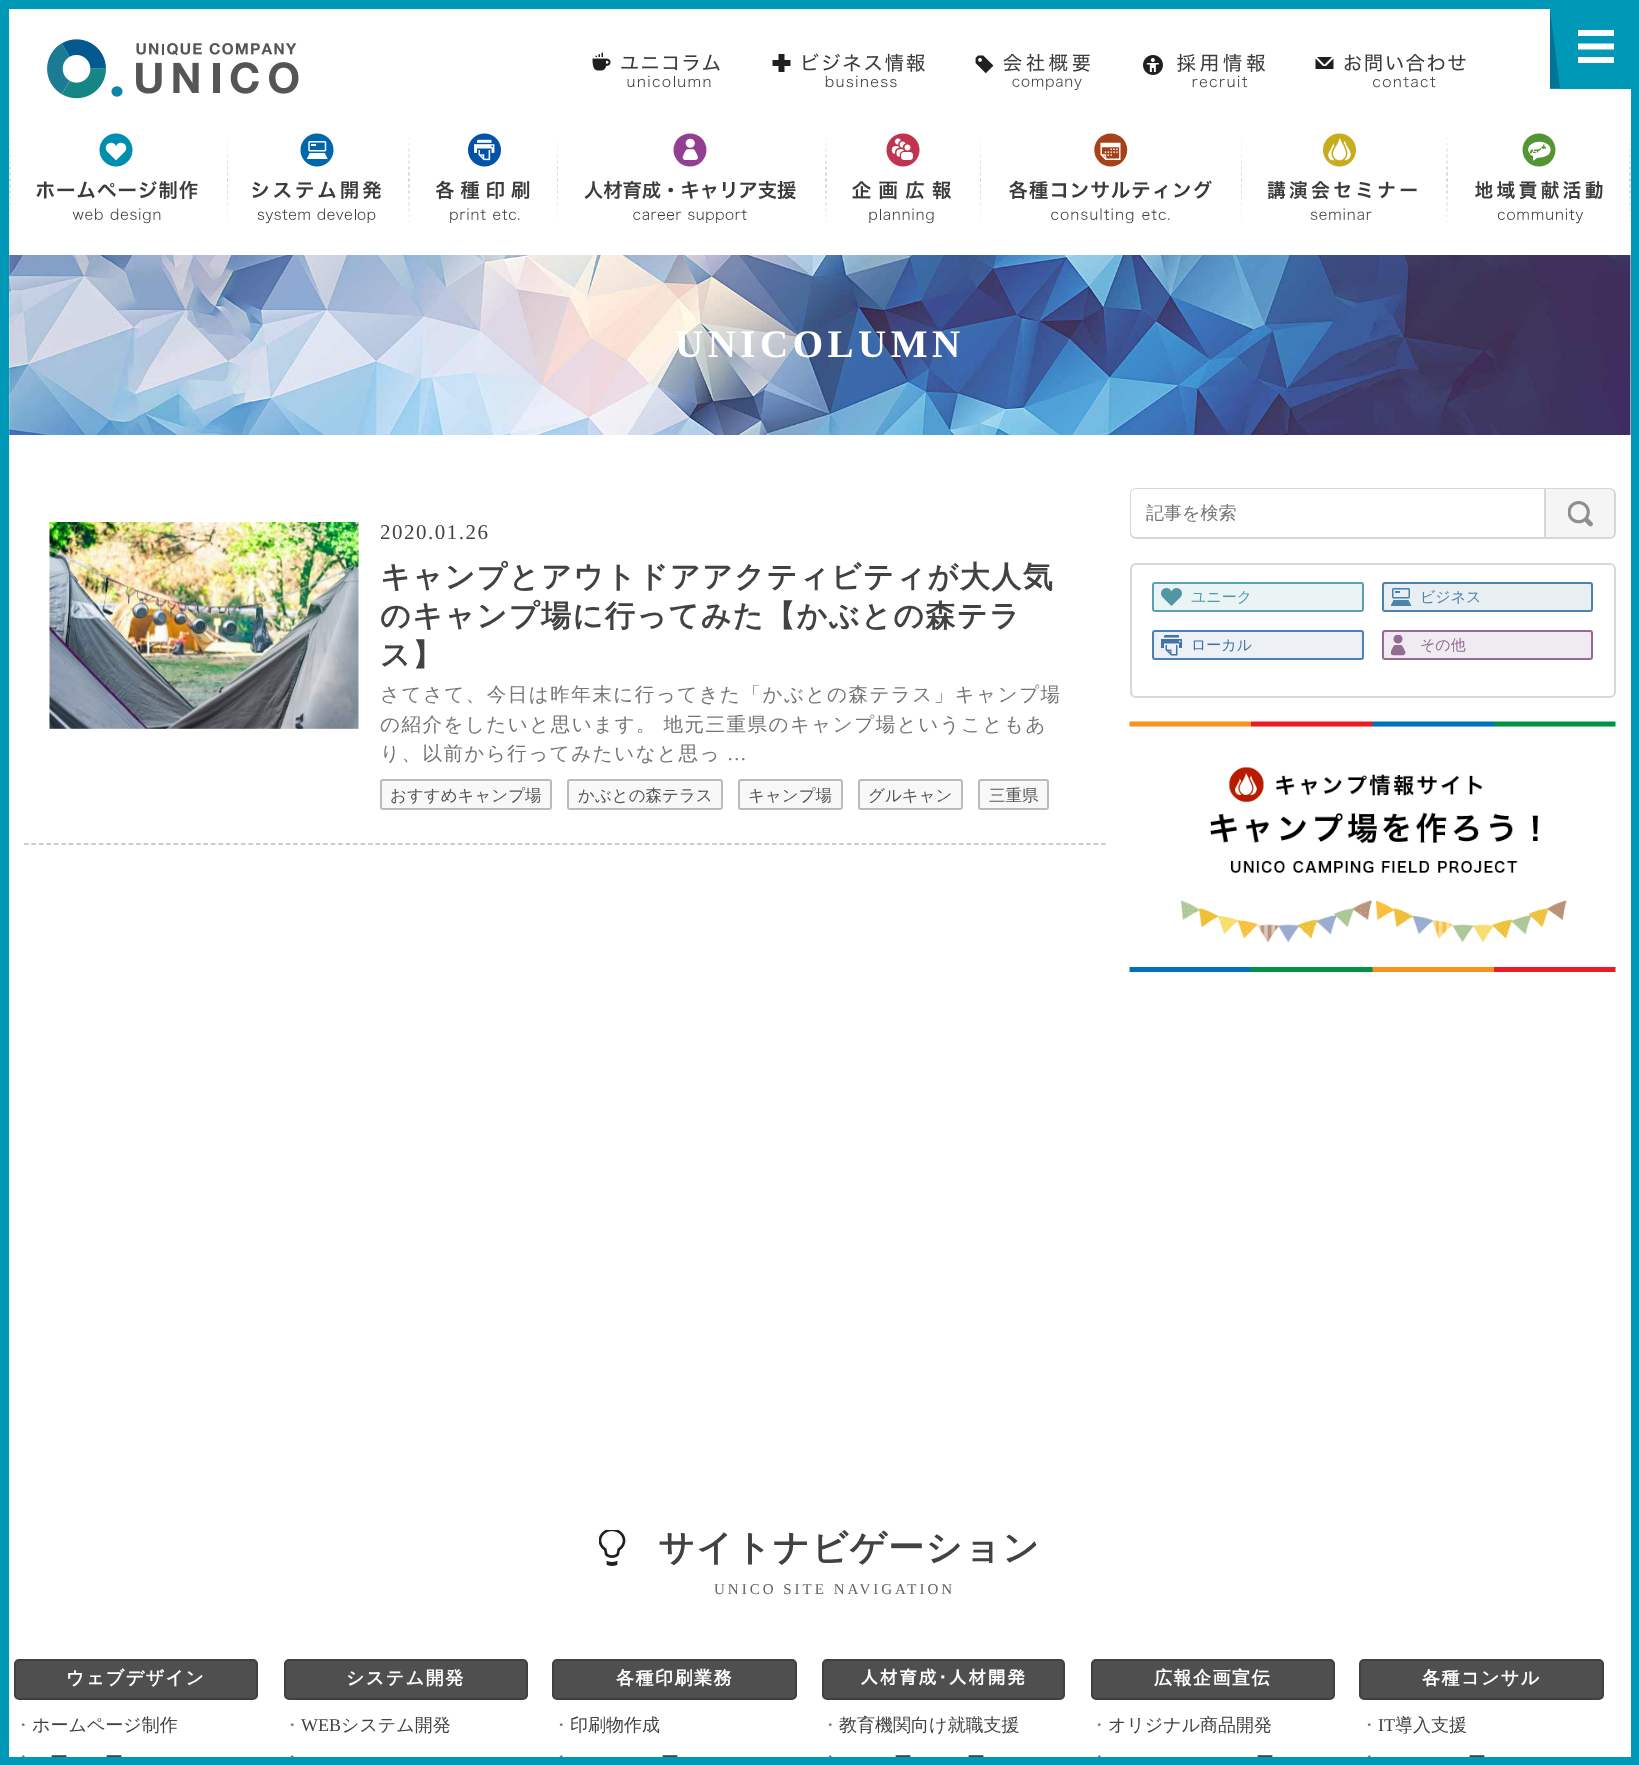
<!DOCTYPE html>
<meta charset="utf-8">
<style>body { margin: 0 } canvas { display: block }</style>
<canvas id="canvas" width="1639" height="1765"></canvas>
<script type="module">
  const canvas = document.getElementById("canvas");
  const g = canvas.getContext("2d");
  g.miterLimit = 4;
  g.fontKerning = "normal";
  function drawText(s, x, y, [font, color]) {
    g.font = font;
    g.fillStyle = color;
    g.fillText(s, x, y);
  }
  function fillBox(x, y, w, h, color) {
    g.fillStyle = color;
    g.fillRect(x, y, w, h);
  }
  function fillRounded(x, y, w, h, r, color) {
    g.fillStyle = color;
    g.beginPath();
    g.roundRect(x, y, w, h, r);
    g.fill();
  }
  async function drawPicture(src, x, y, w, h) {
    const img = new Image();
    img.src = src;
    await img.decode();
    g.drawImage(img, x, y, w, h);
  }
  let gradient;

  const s1 = ["bold 39px Liberation Serif", "#FFFFFF"];
  const s2 = ["21px Liberation Serif", "#424242"];
  const s3 = ["bold 30px WenQuanYi Zen Hei", "#424242"];
  const s4 = ["500 19.5px WenQuanYi Zen Hei", "#757575"];
  const s5 = ["19.5px Liberation Serif", "#757575"];
  const s6 = ["500 16.5px WenQuanYi Zen Hei", "#555555"];
  const s7 = ["500 18px WenQuanYi Zen Hei", "#757575"];
  const s8 = ["500 15px WenQuanYi Zen Hei", "#4B9CAD"];
  const s9 = ["500 15px WenQuanYi Zen Hei", "#4A84AB"];
  const s10 = ["500 15px WenQuanYi Zen Hei", "#4374A8"];
  const s11 = ["500 15px WenQuanYi Zen Hei", "#946B93"];
  const s12 = ["bold 36px WenQuanYi Zen Hei", "#424242"];
  const s13 = ["15px Liberation Serif", "#616161"];
  const s14 = ["bold 18px WenQuanYi Zen Hei", "#FFFFFF"];
  const s15 = ["500 18px WenQuanYi Zen Hei", "#7E7E7E"];
  const s16 = ["500 18px WenQuanYi Zen Hei", "#424242"];
  const s17 = ["18px Liberation Serif", "#424242"];
  const s18 = ["bold 18px IPAPGothic", "#FFFFFF"];

  fillBox(0, 0, 1639, 1765, "#0098B7");
  fillBox(9, 9, 1622, 1748, "#FFFFFF");
  await drawPicture("pic1.png", 47, 39, 252, 60);
  await drawPicture("pic2.png", 592, 52, 128, 36);
  await drawPicture("pic3.png", 772, 53, 153, 35);
  await drawPicture("pic4.png", 975, 53, 115, 37);
  await drawPicture("pic5.png", 1143, 53, 122, 35);
  await drawPicture("pic6.png", 1315, 54, 151, 34);
  fillBox(1550, 9, 81, 80, "#0098B7");
  g.fillStyle = "#037496";
  g.beginPath();
  g.moveTo(1550, 9);
  g.lineTo(1550, 88);
  g.lineTo(1560, 88);
  g.closePath();
  g.fill();
  fillBox(1578, 30, 36, 6, "#FFFFFF");
  g.beginPath();
  g.moveTo(1578, 46.5);
  g.lineTo(1614, 46.5);
  g.strokeStyle = "#FFFFFF";
  g.lineWidth = 6;
  g.stroke();
  fillBox(1578, 57, 36, 6, "#FFFFFF");
  g.beginPath();
  g.moveTo(10, 136.5);
  g.lineTo(10, 225);
  gradient = g.createLinearGradient(10, 228, 10, 132);
  gradient.addColorStop(0, "#FFFFFF");
  gradient.addColorStop(0.51, "#C4C4C4");
  gradient.addColorStop(1, "#FFFFFF");
  g.strokeStyle = gradient;
  g.lineWidth = 1.5;
  g.setLineDash([3, 3]);
  g.stroke();
  await drawPicture("pic7.png", 36, 133, 162, 91);
  g.save();
  g.beginPath();
  g.rect(227, 132, 2, 96);
  g.clip();
  g.beginPath();
  g.moveTo(227, 136.5);
  g.lineTo(227, 225);
  gradient = g.createLinearGradient(227, 228, 227, 132);
  gradient.addColorStop(0, "#FFFFFF");
  gradient.addColorStop(0.51, "#C4C4C4");
  gradient.addColorStop(1, "#FFFFFF");
  g.strokeStyle = gradient;
  g.stroke();
  g.restore();
  await drawPicture("pic8.png", 252, 133, 129, 91);
  g.beginPath();
  g.moveTo(409, 136.5);
  g.lineTo(409, 225);
  gradient = g.createLinearGradient(409, 228, 409, 132);
  gradient.addColorStop(0, "#FFFFFF");
  gradient.addColorStop(0.51, "#C4C4C4");
  gradient.addColorStop(1, "#FFFFFF");
  g.strokeStyle = gradient;
  g.stroke();
  await drawPicture("pic9.png", 435, 133, 95, 90);
  g.save();
  g.beginPath();
  g.rect(557, 132, 2, 96);
  g.clip();
  g.beginPath();
  g.moveTo(557, 136.5);
  g.lineTo(557, 225);
  gradient = g.createLinearGradient(557, 228, 557, 132);
  gradient.addColorStop(0, "#FFFFFF");
  gradient.addColorStop(0.51, "#C4C4C4");
  gradient.addColorStop(1, "#FFFFFF");
  g.strokeStyle = gradient;
  g.stroke();
  g.restore();
  await drawPicture("pic10.png", 584, 133, 212, 90);
  g.beginPath();
  g.moveTo(826, 136.5);
  g.lineTo(826, 225);
  gradient = g.createLinearGradient(826, 228, 826, 132);
  gradient.addColorStop(0, "#FFFFFF");
  gradient.addColorStop(0.51, "#C4C4C4");
  gradient.addColorStop(1, "#FFFFFF");
  g.strokeStyle = gradient;
  g.stroke();
  await drawPicture("pic11.png", 852, 133, 99, 91);
  g.save();
  g.beginPath();
  g.rect(980, 132, 2, 96);
  g.clip();
  g.beginPath();
  g.moveTo(980, 136.5);
  g.lineTo(980, 225);
  gradient = g.createLinearGradient(980, 228, 980, 132);
  gradient.addColorStop(0, "#FFFFFF");
  gradient.addColorStop(0.51, "#C4C4C4");
  gradient.addColorStop(1, "#FFFFFF");
  g.strokeStyle = gradient;
  g.stroke();
  g.restore();
  await drawPicture("pic12.png", 1009, 133, 203, 91);
  g.save();
  g.beginPath();
  g.rect(1241, 132, 2, 96);
  g.clip();
  g.beginPath();
  g.moveTo(1241, 136.5);
  g.lineTo(1241, 225);
  gradient = g.createLinearGradient(1241, 228, 1241, 132);
  gradient.addColorStop(0, "#FFFFFF");
  gradient.addColorStop(0.51, "#C4C4C4");
  gradient.addColorStop(1, "#FFFFFF");
  g.strokeStyle = gradient;
  g.stroke();
  g.restore();
  await drawPicture("pic13.png", 1267, 133, 150, 87);
  g.beginPath();
  g.moveTo(1447, 136.5);
  g.lineTo(1447, 225);
  gradient = g.createLinearGradient(1447, 228, 1447, 132);
  gradient.addColorStop(0, "#FFFFFF");
  gradient.addColorStop(0.51, "#C4C4C4");
  gradient.addColorStop(1, "#FFFFFF");
  g.strokeStyle = gradient;
  g.stroke();
  g.beginPath();
  g.moveTo(1630, 136.5);
  g.lineTo(1630, 225);
  gradient = g.createLinearGradient(1630, 228, 1630, 132);
  gradient.addColorStop(0, "#FFFFFF");
  gradient.addColorStop(0.51, "#C4C4C4");
  gradient.addColorStop(1, "#FFFFFF");
  g.strokeStyle = gradient;
  g.stroke();
  await drawPicture("pic14.png", 1475, 133, 128, 91);
  await drawPicture("pic15.png", 9, 255, 1622, 180);
  g.letterSpacing = "4.5px";
  drawText("UNICOLUMN", 675, 357, s1);
  g.beginPath();
  g.moveTo(24, 844);
  g.lineTo(1107, 844);
  g.strokeStyle = "#BABABA";
  g.setLineDash([4.5, 2.98]);
  g.stroke();
  await drawPicture("pic16.png", 49, 522, 310, 207);
  g.letterSpacing = "1.5px";
  drawText("2020.01.26", 380, 539, s2);
  drawText("キャンプとアウトドアアクティビティが大人気", 380, 587, s3);
  drawText("のキャンプ場に行ってみた【かぶとの森テラ", 380, 626, s3);
  drawText("ス】", 380, 665, s3);
  drawText("さてさて、今日は昨年末に行ってきた「かぶとの森テラス」キャンプ場", 380, 701, s4);
  g.wordSpacing = "-1px";
  drawText("の紹介をしたいと思います。 地元三重県のキャンプ場ということもあ", 380, 731, s4);
  g.wordSpacing = "0px";
  drawText("り、以前から行ってみたいなと思っ", 380, 760, s4);
  drawText("…", 727, 760, s5);
  g.fillStyle = "#F8F8F8";
  g.beginPath();
  g.roundRect(381, 780, 170, 29, 2);
  g.fill();
  g.strokeStyle = "#BBBBBB";
  g.lineWidth = 2;
  g.setLineDash([]);
  g.stroke();
  g.letterSpacing = "0px";
  drawText("おすすめキャンプ場", 390, 801, s6);
  g.fillStyle = "#F8F8F8";
  g.beginPath();
  g.roundRect(568, 780, 154, 29, 2);
  g.fill();
  g.stroke();
  drawText("かぶとの森テラス", 578, 801, s6);
  g.fillStyle = "#F8F8F8";
  g.beginPath();
  g.roundRect(739, 780, 103, 29, 2);
  g.fill();
  g.stroke();
  drawText("キャンプ場", 748, 801, s6);
  g.fillStyle = "#F8F8F8";
  g.beginPath();
  g.roundRect(859, 780, 103, 29, 2);
  g.fill();
  g.stroke();
  drawText("グルキャン", 868, 801, s6);
  g.fillStyle = "#F8F8F8";
  g.beginPath();
  g.roundRect(979, 780, 69, 29, 2);
  g.fill();
  g.stroke();
  drawText("三重県", 989, 801, s6);
  g.fillStyle = "#F5F5F5";
  g.beginPath();
  g.roundRect(1131, 489, 484, 49, 5);
  g.fill();
  g.strokeStyle = "#D7D7D7";
  g.stroke();
  g.fillStyle = "#FFFFFF";
  g.beginPath();
  g.roundRect(1131, 489, 413, 48, [5, 0, 0, 5]);
  g.fill();
  drawText("記事を検索", 1146, 519, s7);
  g.fillStyle = "#F5F5F5";
  g.beginPath();
  g.roundRect(1545, 489, 69, 48, [0, 5, 5, 0]);
  g.fill();
  await drawPicture("pic17.png", 1568, 501, 25, 26);
  fillBox(1544, 489, 2, 48, "#D7D7D7");
  g.beginPath();
  g.roundRect(1131, 564, 484, 133, 5);
  g.stroke();
  fillRounded(1152, 582, 212, 30, 3, "#EBF4F5");
  await drawPicture("pic18.png", 1161, 588, 21, 18);
  g.beginPath();
  g.roundRect(1153, 583, 210, 28, 2);
  g.strokeStyle = "#5CA0AD";
  g.stroke();
  drawText("ユニーク", 1191, 602, s8);
  fillRounded(1382, 582, 211, 30, 3, "#E8EEF2");
  await drawPicture("pic19.png", 1391, 588, 21, 18);
  g.beginPath();
  g.roundRect(1383, 583, 209, 28, 2);
  g.strokeStyle = "#4A84AB";
  g.stroke();
  drawText("ビジネス", 1420, 602, s9);
  fillRounded(1152, 630, 212, 30, 3, "#EDF1F5");
  await drawPicture("pic20.png", 1161, 635, 21, 21);
  g.beginPath();
  g.roundRect(1153, 631, 210, 28, 2);
  g.strokeStyle = "#4B80B8";
  g.stroke();
  drawText("ローカル", 1191, 650, s10);
  fillRounded(1382, 630, 211, 30, 3, "#F0EBF0");
  await drawPicture("pic21.png", 1391, 635, 15, 21);
  g.beginPath();
  g.roundRect(1383, 631, 209, 28, 2);
  g.strokeStyle = "#946B93";
  g.stroke();
  drawText("その他", 1420, 650, s11);
  await drawPicture("pic22.png", 1129, 721, 487, 251);
  await drawPicture("pic23.png", 599, 1530, 27, 36);
  g.letterSpacing = "1.5px";
  drawText("サイトナビゲーション", 658, 1560, s12);
  g.letterSpacing = "3px";
  drawText("UNICO SITE NAVIGATION", 714, 1594, s13);
  g.fillStyle = "#4F4F4F";
  g.beginPath();
  g.roundRect(15, 1660, 242, 39, 4);
  g.fill();
  g.strokeStyle = "#404040";
  g.stroke();
  g.letterSpacing = "1.5px";
  drawText("ウェブデザイン", 66, 1684, s14);
  g.letterSpacing = "0px";
  drawText("・", 14, 1731, s15);
  drawText("ホームページ制作", 32, 1731, s16);
  drawText("・", 14, 1763, s15);
  drawText("ー", 50, 1763, s16);
  drawText("ー", 105, 1763, s16);
  g.fillStyle = "#4F4F4F";
  g.beginPath();
  g.roundRect(285, 1660, 242, 39, 4);
  g.fill();
  g.stroke();
  g.letterSpacing = "1.5px";
  drawText("システム開発", 346, 1684, s14);
  g.letterSpacing = "0px";
  drawText("・", 283, 1731, s15);
  drawText("WEB", 301, 1731, s17);
  drawText("システム開発", 341, 1731, s16);
  drawText("・", 283, 1763, s15);
  g.fillStyle = "#4F4F4F";
  g.beginPath();
  g.roundRect(553, 1660, 243, 39, 4);
  g.fill();
  g.stroke();
  g.letterSpacing = "1.5px";
  drawText("各種印刷業務", 616, 1684, s14);
  g.letterSpacing = "0px";
  drawText("・", 552, 1731, s15);
  drawText("印刷物作成", 570, 1731, s16);
  drawText("・", 552, 1763, s15);
  drawText("ー", 661, 1763, s16);
  g.fillStyle = "#4F4F4F";
  g.beginPath();
  g.roundRect(823, 1660, 241, 39, 4);
  g.fill();
  g.stroke();
  g.letterSpacing = "1.5px";
  drawText("人材育成･人材開発", 860, 1684, s18);
  g.letterSpacing = "0px";
  drawText("・", 821, 1731, s15);
  drawText("教育機関向け就職支援", 839, 1731, s16);
  drawText("・", 821, 1763, s15);
  drawText("ー", 894, 1763, s16);
  drawText("ー", 967, 1763, s16);
  g.fillStyle = "#4F4F4F";
  g.beginPath();
  g.roundRect(1092, 1660, 242, 39, 4);
  g.fill();
  g.stroke();
  g.letterSpacing = "1.5px";
  drawText("広報企画宣伝", 1154, 1684, s14);
  g.letterSpacing = "0px";
  drawText("・", 1090, 1731, s15);
  drawText("オリジナル商品開発", 1108, 1731, s16);
  drawText("・", 1090, 1763, s15);
  drawText("ー", 1256, 1763, s16);
  g.fillStyle = "#4F4F4F";
  g.beginPath();
  g.roundRect(1360, 1660, 243, 39, 4);
  g.fill();
  g.stroke();
  g.letterSpacing = "1.5px";
  drawText("各種コンサル", 1422, 1684, s14);
  g.letterSpacing = "0px";
  drawText("・", 1360, 1731, s15);
  drawText("IT", 1378, 1731, s17);
  drawText("導入支援", 1395, 1731, s16);
  drawText("・", 1360, 1763, s15);
  drawText("ー", 1468, 1763, s16);
  fillBox(21, 1757, 1464, 2, "#0098B7");
</script>
